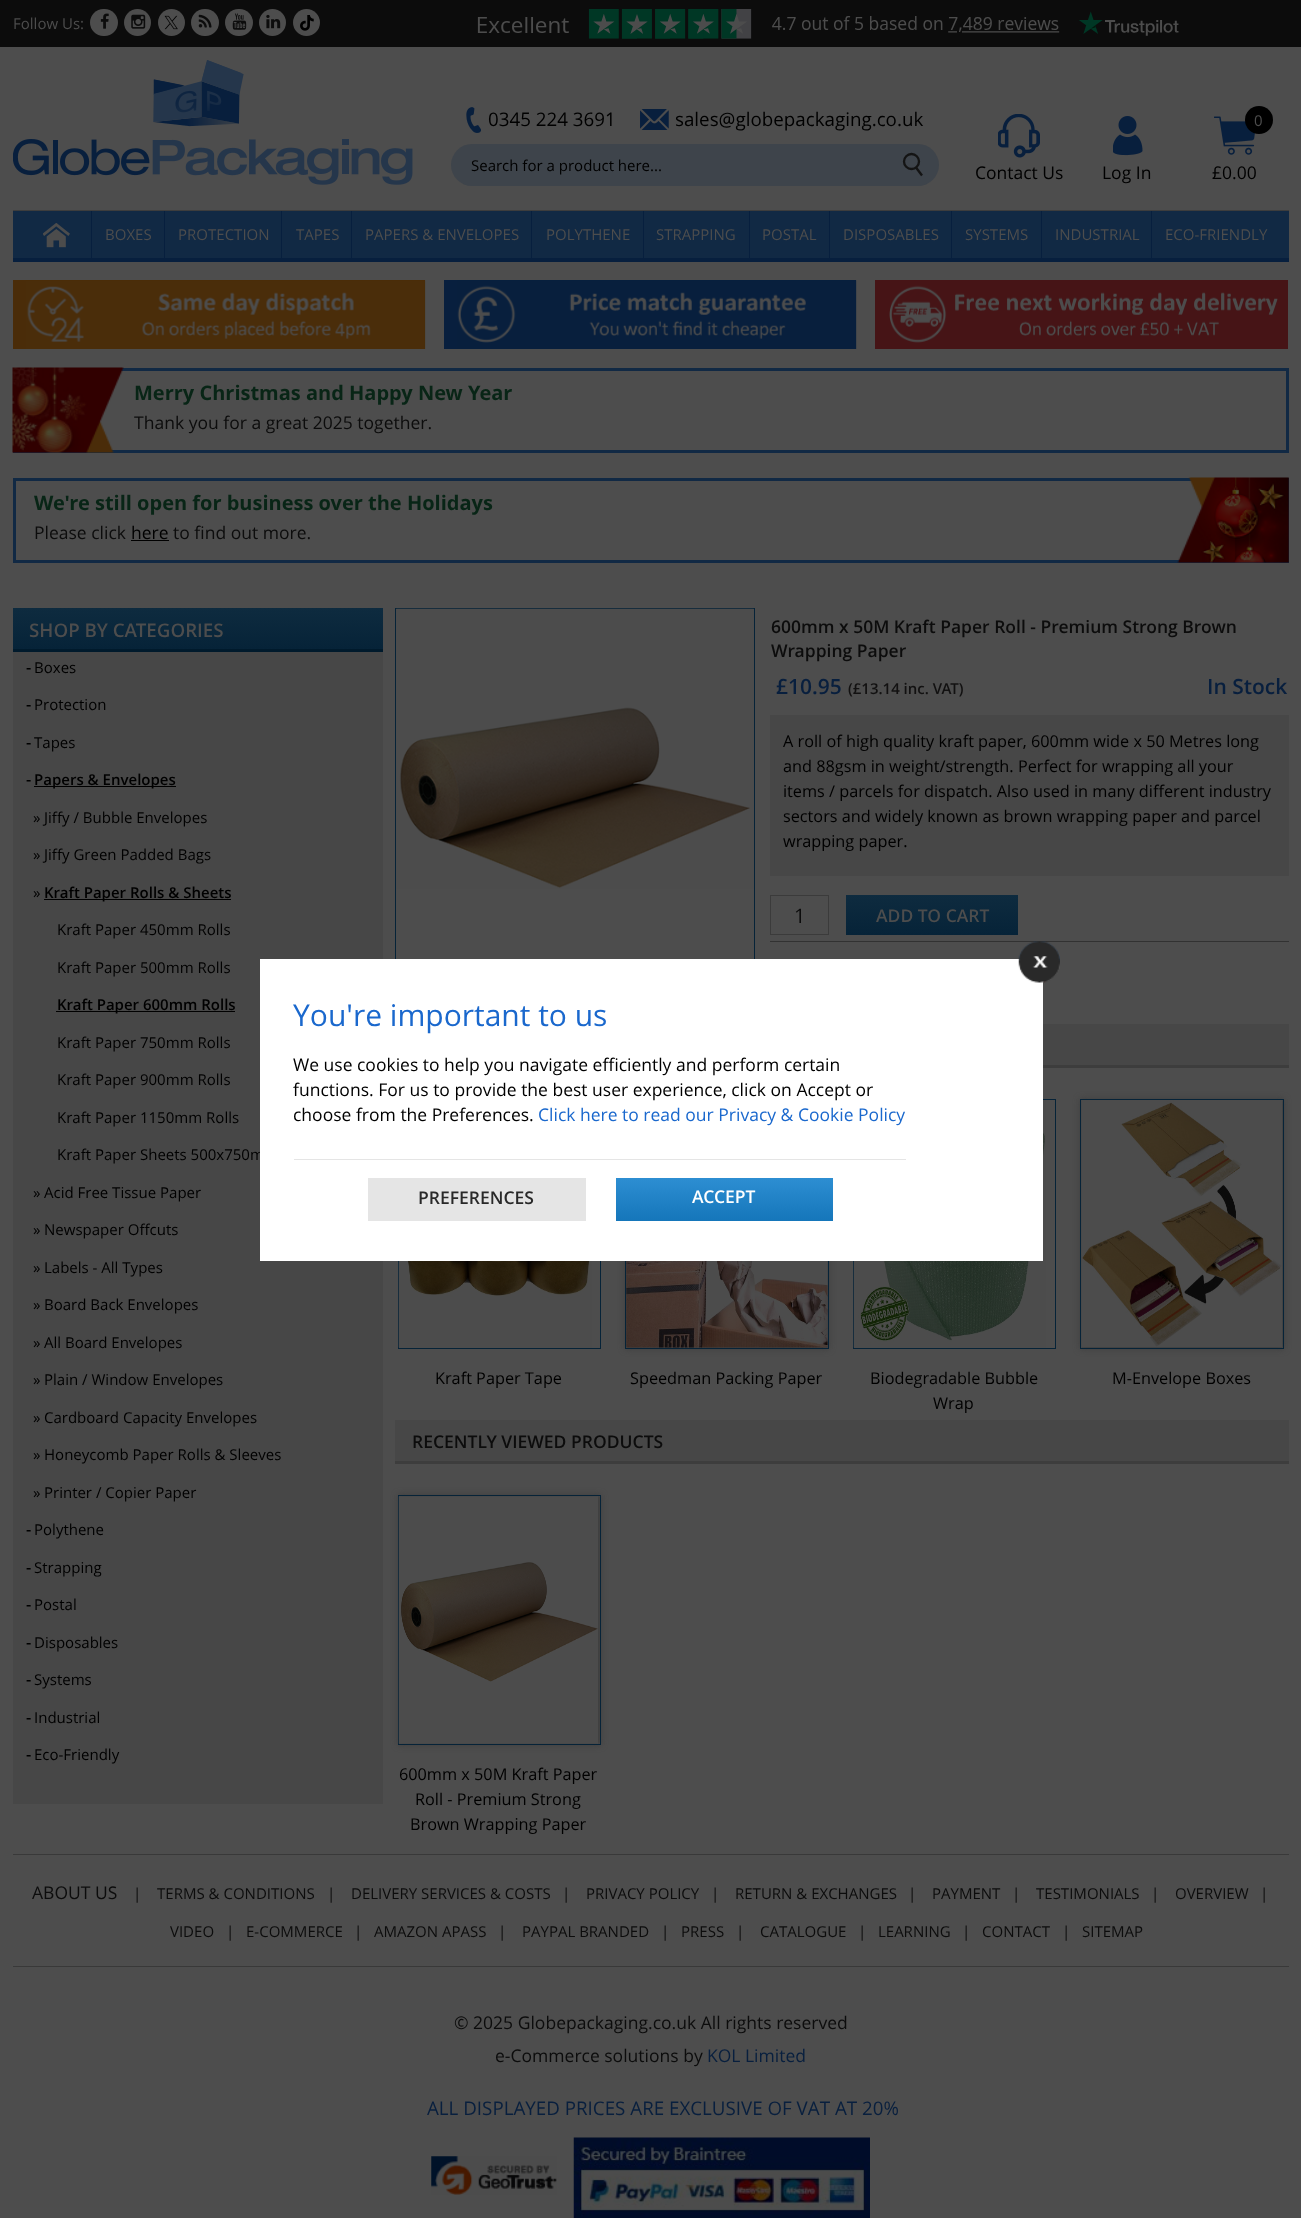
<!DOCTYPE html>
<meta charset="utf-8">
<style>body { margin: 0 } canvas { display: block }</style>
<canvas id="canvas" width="1301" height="2218"></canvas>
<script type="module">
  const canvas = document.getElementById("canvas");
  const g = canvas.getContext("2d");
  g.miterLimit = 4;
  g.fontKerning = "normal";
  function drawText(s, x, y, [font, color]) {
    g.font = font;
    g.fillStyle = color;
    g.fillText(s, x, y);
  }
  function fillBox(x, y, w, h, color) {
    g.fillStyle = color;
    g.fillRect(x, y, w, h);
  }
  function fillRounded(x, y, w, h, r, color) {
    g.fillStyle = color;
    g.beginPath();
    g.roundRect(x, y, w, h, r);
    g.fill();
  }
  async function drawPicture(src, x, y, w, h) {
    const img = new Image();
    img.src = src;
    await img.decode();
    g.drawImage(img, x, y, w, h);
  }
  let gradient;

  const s1 = ["15px Open Sans", "#4D4D4D"];
  const s2 = ["18.75px Open Sans", "#000000"];
  const s3 = ["15px Open Sans", "#000000"];
  const s4 = ["17.5px Open Sans", "#000000"];
  const s5 = ["bold 20px Open Sans", "#082516"];
  const s6 = ["17.5px Open Sans", "#0C0C0C"];
  const s7 = ["600 18.75px Open Sans", "#4D4D4D"];
  const s8 = ["bold 15px 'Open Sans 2'", "#000000"];
  const s9 = ["600 15px Open Sans", "#000000"];
  const s10 = ["600 17.5px Open Sans", "#0C0C0C"];
  const s11 = ["600 21px Open Sans", "#081F3E"];
  const s12 = ["600 15px Open Sans", "#121111"];
  const s13 = ["16.25px Open Sans", "#000000"];
  const s14 = ["20px Open Sans", "#0C0C0C"];
  const s15 = ["600 17.5px Open Sans", "#4D4D4D"];
  const s16 = ["30px Open Sans", "#1A68CD"];
  const s17 = ["17.5px Open Sans", "#1A68CD"];
  const s18 = ["600 17.5px Open Sans", "#292929"];
  const s19 = ["600 17.5px Open Sans", "#FFFFFF"];
  const s20 = ["15px Open Sans", "#0C0C0C"];
  const s21 = ["17.5px Open Sans", "#081F3E"];
  const s22 = ["18.75px Open Sans", "#081F3E"];

  fillBox(0, 0, 1301, 2218, "#4D4D4D");
  fillBox(0, 0, 1301, 47, "#0C0C0C");
  drawText("Follow Us:", 13, 29, s1);
  fillRounded(90, 9, 28, 27, 13.5, "#4D4D4D");
  await drawPicture("pic1.png", 100, 13, 9, 16);
  g.beginPath();
  g.arc(137.5, 22.5, 13.5, 0, Math.PI * 2);
  g.fill();
  await drawPicture("pic2.png", 131, 14, 15, 15);
  g.beginPath();
  g.arc(171.5, 22.5, 13.5, 0, Math.PI * 2);
  g.fill();
  await drawPicture("pic3.png", 164, 15, 14, 15);
  fillRounded(191, 9, 28, 27, 13.5, "#4D4D4D");
  await drawPicture("pic4.png", 198, 14, 14, 14);
  fillRounded(225, 9, 28, 27, 13.5, "#4D4D4D");
  await drawPicture("pic5.png", 232, 13, 15, 17);
  g.beginPath();
  g.arc(272.5, 22.5, 13.5, 0, Math.PI * 2);
  g.fill();
  await drawPicture("pic6.png", 266, 14, 15, 15);
  g.beginPath();
  g.arc(306.5, 22.5, 13.5, 0, Math.PI * 2);
  g.fill();
  await drawPicture("pic7.png", 300, 15, 14, 16);
  await drawPicture("pic8.png", 477, 8, 702, 31);
  await drawPicture("pic9.png", 13, 60, 400, 125);
  await drawPicture("pic10.png", 466, 107, 15, 26);
  drawText("0345 224 3691", 488, 126, s2);
  await drawPicture("pic11.png", 640, 109, 29, 21);
  drawText("sales@globepackaging.co.uk", 675, 126, s2);
  fillRounded(451, 144, 488, 42, 21, "#3E444B");
  drawText("Search for a product here...", 471, 171, s3);
  g.beginPath();
  g.arc(911.5, 161.5, 7.5, 0, Math.PI * 2);
  g.strokeStyle = "#141414";
  g.lineWidth = 2.3;
  g.stroke();
  g.beginPath();
  g.moveTo(916, 167.5);
  g.lineTo(922, 175.5);
  g.stroke();
  await drawPicture("pic12.png", 998, 114, 42, 44);
  drawText("Contact Us", 975, 179, s4);
  await drawPicture("pic13.png", 1113, 116, 30, 40);
  drawText("Log In", 1102, 179, s4);
  await drawPicture("pic14.png", 1214, 116, 41, 39);
  g.beginPath();
  g.arc(1259, 120, 14, 0, Math.PI * 2);
  g.fill();
  drawText("0", 1254, 126, s1);
  drawText("£0.00", 1212, 179, s4);
  fillBox(13, 211, 1276, 47, "#112944");
  fillBox(13, 210, 1276, 1, "#3D3D3D");
  fillBox(13, 258, 1276, 4, "#071F3E");
  fillBox(91, 211, 1, 47, "#071F3E");
  await drawPicture("pic15.png", 43, 223, 27, 25);
  fillBox(164, 211, 1, 47, "#071F3E");
  drawText("BOXES", 105, 240, s1);
  fillBox(281, 211, 1, 47, "#071F3E");
  drawText("PROTECTION", 178, 240, s1);
  fillBox(351, 211, 1, 47, "#071F3E");
  drawText("TAPES", 296, 240, s1);
  fillBox(531, 211, 1, 47, "#071F3E");
  drawText("PAPERS & ENVELOPES", 365, 240, s1);
  fillBox(643, 211, 1, 47, "#071F3E");
  drawText("POLYTHENE", 546, 240, s1);
  fillBox(749, 211, 1, 47, "#071F3E");
  drawText("STRAPPING", 656, 240, s1);
  fillBox(829, 211, 1, 47, "#071F3E");
  drawText("POSTAL", 762, 240, s1);
  fillBox(951, 211, 1, 47, "#071F3E");
  drawText("DISPOSABLES", 843, 240, s1);
  fillBox(1041, 211, 1, 47, "#071F3E");
  drawText("SYSTEMS", 965, 240, s1);
  fillBox(1151, 211, 1, 47, "#071F3E");
  drawText("INDUSTRIAL", 1055, 240, s1);
  drawText("ECO-FRIENDLY", 1165, 240, s1);
  fillBox(13, 280, 412, 69, "#4A2C09");
  await drawPicture("pic16.png", 26, 280, 400, 69);
  fillBox(444, 280, 412, 69, "#081F3E");
  await drawPicture("pic17.png", 457, 280, 400, 69);
  fillBox(875, 280, 413, 69, "#461416");
  await drawPicture("pic18.png", 889, 285, 389, 58);
  g.strokeStyle = "#112944";
  g.lineWidth = 3;
  g.strokeRect(14.5, 369.5, 1273, 82);
  await drawPicture("pic19.png", 12, 367, 112, 86);
  drawText("Merry Christmas and Happy New Year", 134, 400, s5);
  drawText("Thank you for a great 2025 together.", 134, 429, s6);
  g.strokeRect(14.5, 479.5, 1273, 82);
  drawText("We're still open for business over the Holidays", 34, 510, s5);
  drawText("Please click", 34, 539, s6);
  drawText("here", 131, 539, s4);
  fillBox(131, 540, 38, 1, "#000000");
  drawText("to find out more.", 173, 539, s6);
  await drawPicture("pic20.png", 1177, 477, 112, 86);
  fillBox(13, 652, 370, 1152, "#474747");
  gradient = g.createLinearGradient(198, 608, 198, 649);
  gradient.addColorStop(0, "#0E2B3F");
  gradient.addColorStop(1, "#062338");
  g.fillStyle = gradient;
  g.fillRect(13, 608, 370, 41);
  fillBox(13, 649, 370, 3, "#001A2C");
  drawText("SHOP BY CATEGORIES", 29, 637, s7);
  drawText("-", 26, 673, s8);
  drawText("Boxes", 34, 673, s3);
  drawText("-", 26, 710, s8);
  drawText("Protection", 34, 710, s3);
  drawText("-", 26, 748, s8);
  drawText("Tapes", 34, 748, s3);
  drawText("-", 26, 785, s8);
  fillBox(34, 786, 142, 1, "#000000");
  drawText("Papers & Envelopes", 34, 785, s9);
  drawText("»", 33, 823, s3);
  drawText("Jiffy / Bubble Envelopes", 44, 823, s3);
  drawText("»", 33, 860, s3);
  drawText("Jiffy Green Padded Bags", 44, 860, s3);
  drawText("»", 33, 898, s3);
  fillBox(44, 899, 187, 1, "#000000");
  drawText("Kraft Paper Rolls & Sheets", 44, 898, s9);
  drawText("Kraft Paper 450mm Rolls", 57, 935, s3);
  drawText("Kraft Paper 500mm Rolls", 57, 973, s3);
  fillBox(56, 1011, 179, 1, "#000000");
  drawText("Kraft Paper 600mm Rolls", 57, 1010, s9);
  drawText("Kraft Paper 750mm Rolls", 57, 1048, s3);
  drawText("Kraft Paper 900mm Rolls", 57, 1085, s3);
  drawText("Kraft Paper 1150mm Rolls", 57, 1123, s3);
  drawText("Kraft Paper Sheets 500x750m", 57, 1160, s3);
  drawText("»", 33, 1198, s3);
  drawText("Acid Free Tissue Paper", 44, 1198, s3);
  drawText("»", 33, 1235, s3);
  drawText("Newspaper Offcuts", 44, 1235, s3);
  drawText("»", 33, 1273, s3);
  drawText("Labels - All Types", 44, 1273, s3);
  drawText("»", 33, 1310, s3);
  drawText("Board Back Envelopes", 44, 1310, s3);
  drawText("»", 33, 1348, s3);
  drawText("All Board Envelopes", 44, 1348, s3);
  drawText("»", 33, 1385, s3);
  drawText("Plain / Window Envelopes", 44, 1385, s3);
  drawText("»", 33, 1423, s3);
  drawText("Cardboard Capacity Envelopes", 44, 1423, s3);
  drawText("»", 33, 1460, s3);
  drawText("Honeycomb Paper Rolls & Sleeves", 44, 1460, s3);
  drawText("»", 33, 1498, s3);
  drawText("Printer / Copier Paper", 44, 1498, s3);
  drawText("-", 26, 1535, s8);
  drawText("Polythene", 34, 1535, s3);
  drawText("-", 26, 1573, s8);
  drawText("Strapping", 34, 1573, s3);
  drawText("-", 26, 1610, s8);
  drawText("Postal", 34, 1610, s3);
  drawText("-", 26, 1648, s8);
  drawText("Disposables", 34, 1648, s3);
  drawText("-", 26, 1685, s8);
  drawText("Systems", 34, 1685, s3);
  drawText("-", 26, 1723, s8);
  drawText("Industrial", 34, 1723, s3);
  drawText("-", 26, 1760, s8);
  drawText("Eco-Friendly", 34, 1760, s3);
  g.strokeStyle = "#062338";
  g.lineWidth = 1;
  g.strokeRect(395.5, 608.5, 359, 374);
  await drawPicture("pic21.png", 396, 608, 358, 281);
  drawText("600mm x 50M Kraft Paper Roll - Premium Strong Brown", 771, 633, s10);
  drawText("Wrapping Paper", 771, 657, s10);
  drawText("£10.95", 776, 694, s11);
  drawText("(£13.14 inc. VAT)", 848, 694, s12);
  drawText("In Stock", 1207, 694, s11);
  fillBox(770, 715, 519, 161, "#474747");
  drawText("A roll of high quality kraft paper, 600mm wide x 50 Metres long", 783, 747, s13);
  drawText("and 88gsm in weight/strength. Perfect for wrapping all your", 783, 772, s13);
  drawText("items / parcels for dispatch. Also used in many different industry", 783, 797, s13);
  drawText("sectors and widely known as brown wrapping paper and parcel", 783, 822, s13);
  drawText("wrapping paper.", 783, 847, s13);
  fillBox(770, 941, 519, 1, "#323232");
  g.strokeStyle = "#3B3B3B";
  g.strokeRect(770.5, 895.5, 58, 39);
  drawText("1", 794, 923, s14);
  gradient = g.createLinearGradient(932, 895, 932, 935);
  gradient.addColorStop(0, "#0E2B3F");
  gradient.addColorStop(1, "#062338");
  g.fillStyle = gradient;
  g.fillRect(846, 895, 172, 40);
  drawText("ADD TO CART", 876, 922, s15);
  fillBox(1043, 1024, 246, 41, "#474747");
  fillBox(1043, 1065, 246, 3, "#3D3D3D");
  g.strokeStyle = "#062338";
  g.strokeRect(398.5, 1099.5, 202, 249);
  await drawPicture("pic22.png", 398, 1261, 194, 87);
  drawText("Kraft Paper Tape", 435, 1384, s13);
  g.fillStyle = "#3D3D3D";
  g.filter = "blur(3px)";
  g.beginPath();
  g.rect(625, 1099, 204, 250);
  g.fill();
  g.filter = "none";
  g.strokeRect(625.5, 1099.5, 203, 249);
  await drawPicture("pic23.png", 626, 1261, 202, 87);
  drawText("Speedman Packing Paper", 630, 1384, s13);
  g.strokeRect(853.5, 1099.5, 202, 249);
  await drawPicture("pic24.png", 853, 1100, 193, 248);
  drawText("Biodegradable Bubble", 870, 1384, s13);
  drawText("Wrap", 933, 1409, s13);
  g.fillStyle = "#3D3D3D";
  g.filter = "blur(3px)";
  g.beginPath();
  g.rect(1080, 1099, 204, 250);
  g.fill();
  g.filter = "none";
  g.strokeRect(1080.5, 1099.5, 203, 249);
  await drawPicture("pic25.png", 1081, 1100, 201, 247);
  drawText("M-Envelope Boxes", 1112, 1384, s13);
  fillBox(395, 1420, 894, 41, "#474747");
  fillBox(395, 1461, 894, 3, "#3D3D3D");
  drawText("RECENTLY VIEWED PRODUCTS", 412, 1448, s10);
  g.fillStyle = "#3D3D3D";
  g.filter = "blur(3px)";
  g.beginPath();
  g.rect(398, 1495, 203, 250);
  g.fill();
  g.filter = "none";
  g.strokeRect(398.5, 1495.5, 202, 249);
  await drawPicture("pic26.png", 398, 1496, 200, 248);
  drawText("600mm x 50M Kraft Paper", 399, 1780, s13);
  drawText("Roll - Premium Strong", 415, 1805, s13);
  drawText("Brown Wrapping Paper", 410, 1830, s13);
  fillBox(260, 959, 783, 302, "#FFFFFF");
  await drawPicture("pic27.png", 1018, 941, 42, 42);
  drawText("You're important to us", 293, 1026, s16);
  drawText("We use cookies to help you navigate efficiently and perform certain", 293, 1071, s4);
  drawText("functions. For us to provide the best user experience, click on Accept or", 293, 1096, s4);
  drawText("choose from the Preferences.", 293, 1121, s4);
  drawText("Click here to read our Privacy & Cookie Policy", 538, 1121, s17);
  fillBox(294, 1159, 612, 1, "#E5E5E5");
  fillBox(368, 1178, 218, 43, "#E5E5E5");
  drawText("PREFERENCES", 418, 1204, s18);
  gradient = g.createLinearGradient(724, 1178, 724, 1221);
  gradient.addColorStop(0, "#2D8ED2");
  gradient.addColorStop(1, "#1576BA");
  g.fillStyle = gradient;
  g.fillRect(616, 1178, 217, 43);
  drawText("ACCEPT", 692, 1203, s19);
  fillBox(13, 1854, 1276, 1, "#393939");
  fillBox(13, 1966, 1276, 1, "#393939");
  drawText("ABOUT US", 32, 1899, s6);
  drawText("|", 133, 1899, s20);
  drawText("TERMS & CONDITIONS", 157, 1899, s20);
  drawText("|", 327, 1899, s20);
  drawText("DELIVERY SERVICES & COSTS", 351, 1899, s20);
  drawText("|", 562, 1899, s20);
  drawText("PRIVACY POLICY", 586, 1899, s20);
  drawText("|", 711, 1899, s20);
  drawText("RETURN & EXCHANGES", 735, 1899, s20);
  drawText("|", 908, 1899, s20);
  drawText("PAYMENT", 932, 1899, s20);
  drawText("|", 1012, 1899, s20);
  drawText("TESTIMONIALS", 1036, 1899, s20);
  drawText("|", 1151, 1899, s20);
  drawText("OVERVIEW", 1175, 1899, s20);
  drawText("|", 1260, 1899, s20);
  drawText("VIDEO", 170, 1937, s20);
  drawText("|", 226, 1937, s20);
  drawText("E-COMMERCE", 246, 1937, s20);
  drawText("|", 354, 1937, s20);
  drawText("AMAZON APASS", 374, 1937, s20);
  drawText("|", 498, 1937, s20);
  drawText("PAYPAL BRANDED", 522, 1937, s20);
  drawText("|", 661, 1937, s20);
  drawText("PRESS", 681, 1937, s20);
  drawText("|", 736, 1937, s20);
  drawText("CATALOGUE", 760, 1937, s20);
  drawText("|", 858, 1937, s20);
  drawText("LEARNING", 878, 1937, s20);
  drawText("|", 962, 1937, s20);
  drawText("CONTACT", 982, 1937, s20);
  drawText("|", 1062, 1937, s20);
  drawText("SITEMAP", 1082, 1937, s20);
  drawText("© 2025 Globepackaging.co.uk All rights reserved", 454, 2029, s6);
  drawText("e-Commerce solutions by", 495, 2062, s6);
  drawText("KOL Limited", 707, 2062, s21);
  drawText("ALL DISPLAYED PRICES ARE EXCLUSIVE OF VAT AT 20%", 427, 2115, s22);
  await drawPicture("pic28.png", 431, 2156, 126, 39);
  await drawPicture("pic29.png", 573, 2137, 297, 81);
</script>
